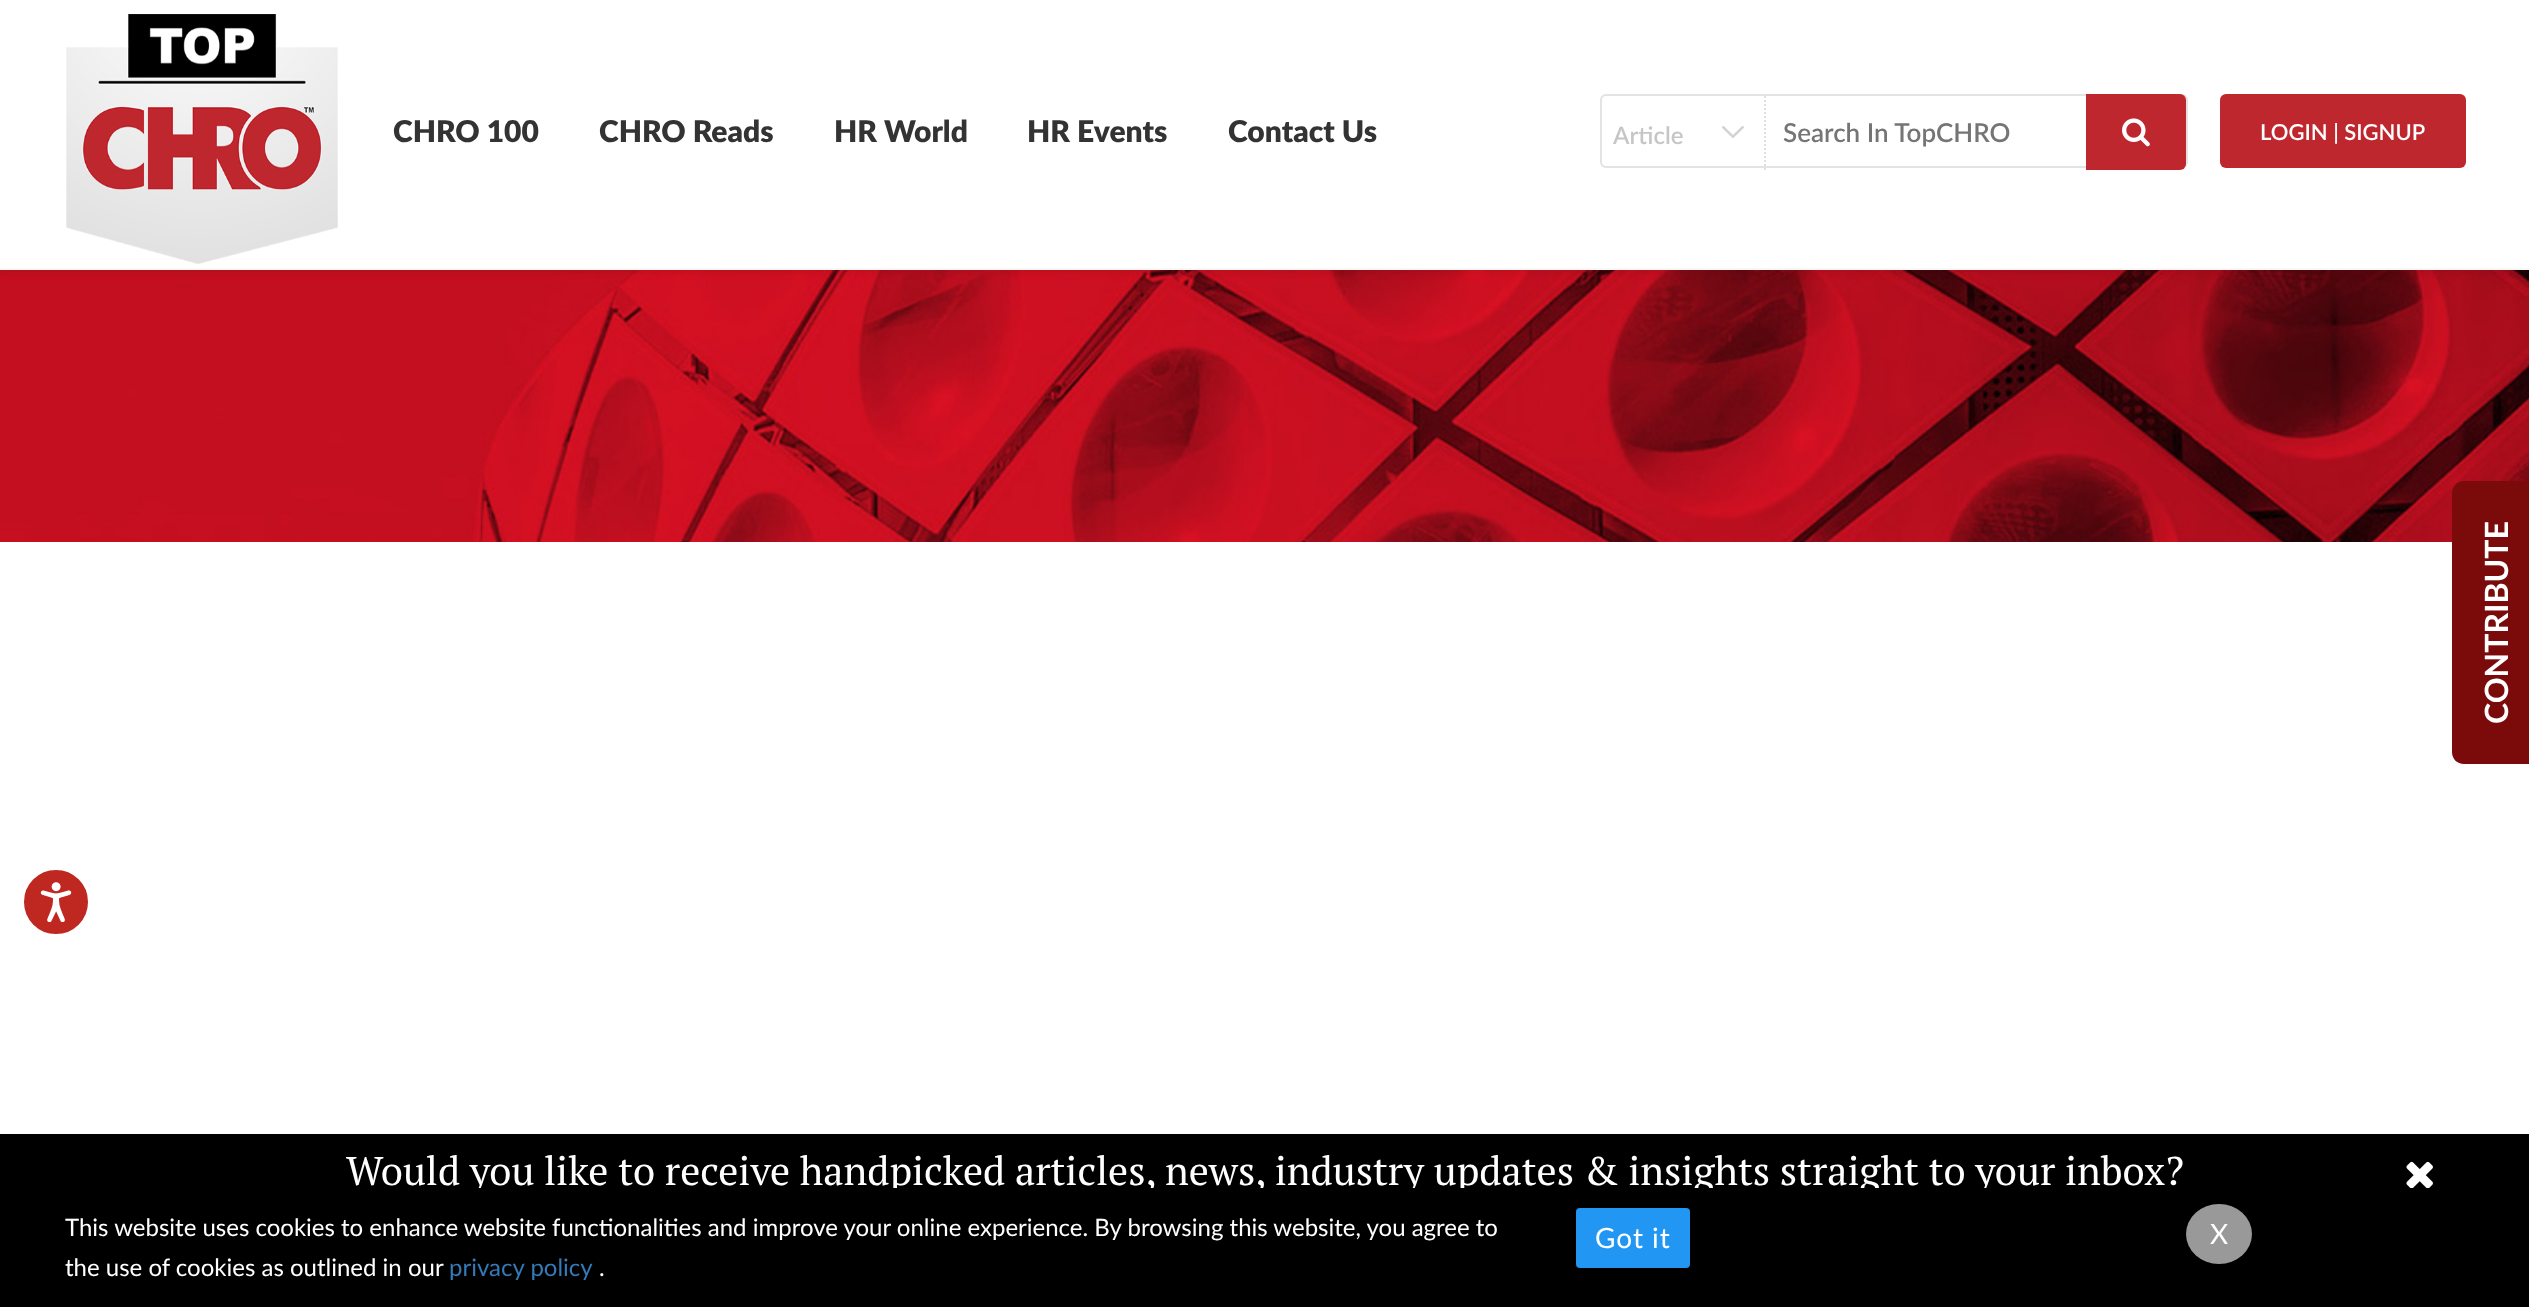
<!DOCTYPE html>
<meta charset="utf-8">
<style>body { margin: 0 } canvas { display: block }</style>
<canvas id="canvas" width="2529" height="1307"></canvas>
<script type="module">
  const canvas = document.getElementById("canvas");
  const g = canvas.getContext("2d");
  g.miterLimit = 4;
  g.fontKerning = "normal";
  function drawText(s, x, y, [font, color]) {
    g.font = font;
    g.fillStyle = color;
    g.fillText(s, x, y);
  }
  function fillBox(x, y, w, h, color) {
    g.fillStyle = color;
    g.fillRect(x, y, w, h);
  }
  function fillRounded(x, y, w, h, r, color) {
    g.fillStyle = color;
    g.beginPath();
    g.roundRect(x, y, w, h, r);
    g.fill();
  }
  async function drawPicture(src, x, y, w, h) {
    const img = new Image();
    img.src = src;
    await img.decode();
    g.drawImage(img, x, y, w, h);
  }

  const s1 = ["800 30px Lato", "#333333"];
  const s2 = ["600 24px Lato", "#C6C6C6"];
  const s3 = ["600 26px Lato", "#757575"];
  const s4 = ["600 22px Lato", "#FFFFFF"];
  const s5 = ["40px PT Serif", "#FFFFFF"];
  const s6 = ["24px Lato", "#FFFFFF"];
  const s7 = ["24px Lato", "#337AB7"];
  const s8 = ["28px Lato", "#FFFFFF"];

  fillBox(0, 0, 2529, 1307, "#FFFFFF");
  await drawPicture("pic4.png", 0, 270, 2529, 272);
  g.fillStyle = "rgba(0, 0, 0, 0.15)";
  g.filter = "blur(5px)";
  g.beginPath();
  g.rect(0, 0, 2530, 270);
  g.fill();
  g.filter = "none";
  fillBox(0, 0, 2529, 268, "#FFFFFF");
  fillBox(0, 268, 2529, 2, "#F8F8F8");
  await drawPicture("pic1.png", 66, 14, 272, 250);
  drawText("CHRO 100", 393, 142, s1);
  drawText("CHRO Reads", 599, 142, s1);
  drawText("HR World", 834, 142, s1);
  drawText("HR Events", 1027, 142, s1);
  drawText("Contact Us", 1228, 142, s1);
  g.beginPath();
  g.roundRect(1601, 95, 586, 72, 5);
  g.strokeStyle = "#E3E3E3";
  g.lineWidth = 2;
  g.stroke();
  await drawPicture("pic2.png", 1722, 126, 22, 12);
  g.beginPath();
  g.moveTo(1765, 96);
  g.lineTo(1765, 172);
  g.strokeStyle = "#E1E1E1";
  g.setLineDash([2, 2]);
  g.stroke();
  drawText("Article", 1613, 144, s2);
  drawText("Search In TopCHRO", 1783, 142, s3);
  g.fillStyle = "#BF272F";
  g.beginPath();
  g.roundRect(2086, 94, 100, 76, [0, 6, 6, 0]);
  g.fill();
  await drawPicture("pic3.png", 2122, 118, 28, 29);
  fillRounded(2220, 94, 246, 74, 6, "#BF272F");
  drawText("LOGIN | SIGNUP", 2260, 140, s4);
  g.fillStyle = "#7B0B0B";
  g.beginPath();
  g.moveTo(2452, 752);
  g.lineTo(2452, 493);
  g.bezierCurveTo(2452, 487, 2457, 481, 2464, 481);
  g.lineTo(2529, 481);
  g.bezierCurveTo(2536, 481, 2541, 487, 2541, 493);
  g.lineTo(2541, 752);
  g.bezierCurveTo(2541, 759, 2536, 764, 2529, 764);
  g.lineTo(2464, 764);
  g.bezierCurveTo(2457, 764, 2452, 759, 2452, 752);
  g.closePath();
  g.fill();
  g.font = "bold 32px Lato";
  g.fillStyle = "#FFFFFF";
  g.save();
  g.translate(2508, 724);
  g.rotate(-90 * Math.PI / 180);
  g.fillText("CONTRIBUTE", 0, 0);
  g.restore();
  g.fillStyle = "#BF2721";
  g.beginPath();
  g.arc(56, 902, 34, 0, Math.PI * 2);
  g.fill();
  g.strokeStyle = "#FFFFFF";
  g.lineWidth = 4;
  g.setLineDash([]);
  g.stroke();
  await drawPicture("pic5.png", 40, 882, 32, 40);
  fillBox(0, 1134, 2529, 54, "#000000");
  drawText("Would you like to receive handpicked articles, news, industry updates & insights straight to your inbox?", 346, 1185, s5);
  await drawPicture("pic6.png", 2406, 1161, 27, 27);
  fillBox(0, 1188, 2529, 119, "#000000");
  drawText("This website uses cookies to enhance website functionalities and improve your online experience. By browsing this website, you agree to", 65, 1236, s6);
  drawText("the use of cookies as outlined in our", 65, 1276, s6);
  drawText("privacy policy", 449, 1276, s7);
  drawText(".", 599, 1276, s6);
  fillRounded(1576, 1208, 114, 60, 4, "#2196F3");
  g.letterSpacing = "1px";
  drawText("Got it", 1595, 1248, s8);
  g.fillStyle = "#999999";
  g.beginPath();
  g.ellipse(2219, 1234, 33, 30, 0, 0, Math.PI * 2);
  g.fill();
  g.letterSpacing = "0px";
  drawText("X", 2210, 1244, s8);
</script>
